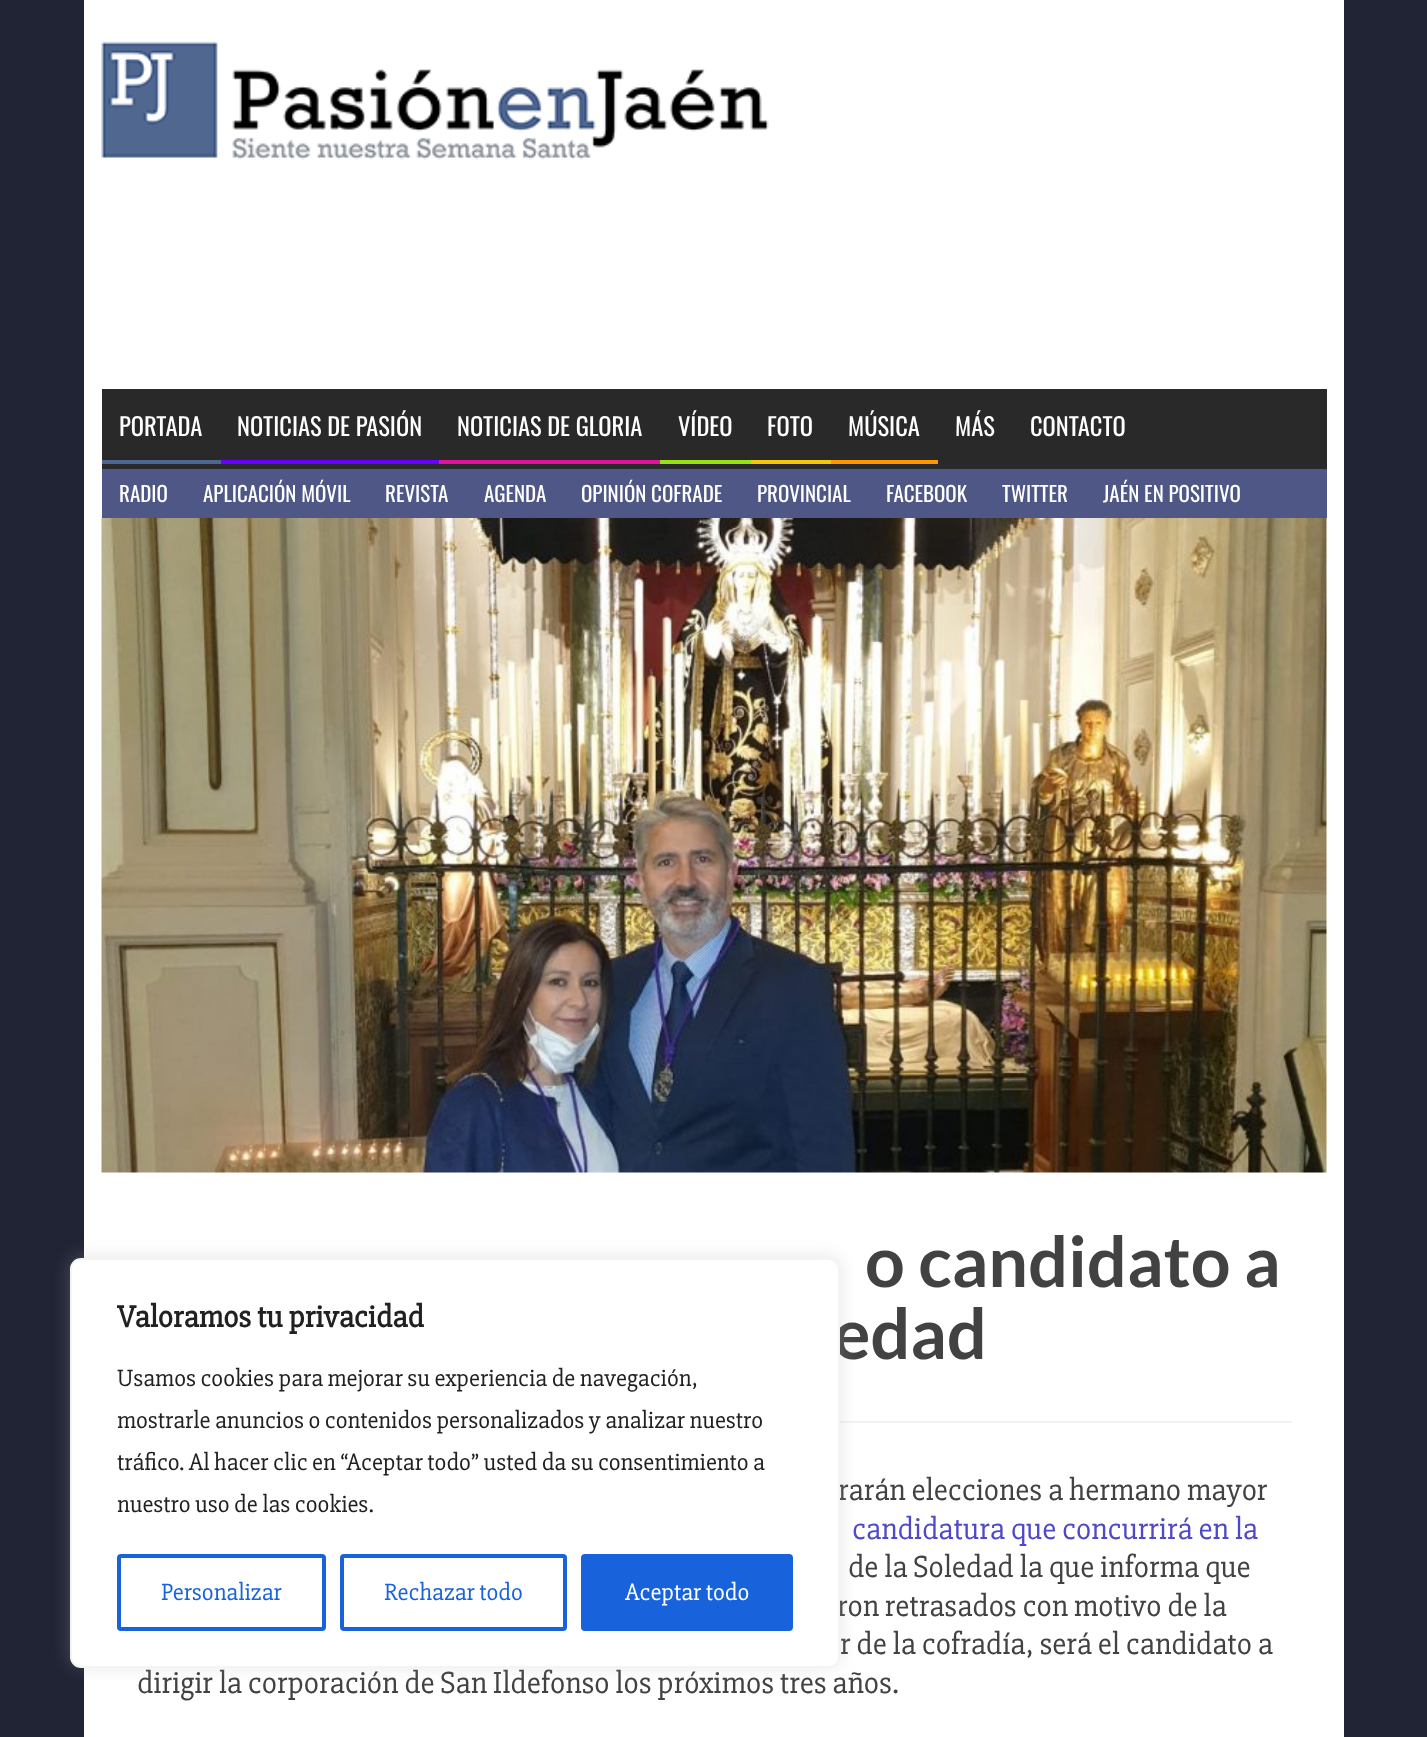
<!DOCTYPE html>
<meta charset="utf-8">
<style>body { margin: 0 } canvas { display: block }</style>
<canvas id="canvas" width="1427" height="1737"></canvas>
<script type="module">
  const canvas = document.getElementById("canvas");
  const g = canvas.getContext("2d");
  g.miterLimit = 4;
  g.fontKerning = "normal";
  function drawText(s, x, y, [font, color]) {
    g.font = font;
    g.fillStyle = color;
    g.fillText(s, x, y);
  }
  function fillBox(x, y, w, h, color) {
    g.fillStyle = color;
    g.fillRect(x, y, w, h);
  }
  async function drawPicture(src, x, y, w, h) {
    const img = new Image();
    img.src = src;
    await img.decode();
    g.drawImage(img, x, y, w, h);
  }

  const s1 = ["24.5px Oswald", "#FFFFFF"];
  const s2 = ["21px Oswald", "#FFFFFF"];
  const s3 = ["bold 70px Lato", "#424242"];
  const s4 = ["31.5px 'Slabo 27px'", "#424242"];
  const s5 = ["31.5px 'Slabo 27px'", "#4F49CA"];
  const s6 = ["bold 31.5px 'Slabo 27px'", "#212121"];
  const s7 = ["24.5px 'Slabo 27px'", "#212121"];
  const s8 = ["24.5px 'Slabo 27px'", "#1863DC"];
  const s9 = ["24.5px 'Slabo 27px'", "#FFFFFF"];

  fillBox(0, 0, 1427, 1737, "#212435");
  fillBox(84, 0, 1260, 1737, "#FFFFFF");
  await drawPicture("pic1.png", 101, 41, 668, 119);
  fillBox(102, 389, 1225, 80, "#292929");
  fillBox(102, 460, 119, 4, "#4F678F");
  drawText("PORTADA", 119, 436, s1);
  fillBox(221, 460, 218, 4, "#6600FF");
  drawText("NOTICIAS DE PASIÓN", 237, 436, s1);
  fillBox(439, 460, 221, 4, "#E2129B");
  drawText("NOTICIAS DE GLORIA", 457, 436, s1);
  fillBox(660, 460, 91, 4, "#96E212");
  drawText("VÍDEO", 678, 436, s1);
  fillBox(751, 460, 80, 4, "#F4C60C");
  drawText("FOTO", 767, 436, s1);
  fillBox(831, 460, 107, 4, "#FF9600");
  drawText("MÚSICA", 848, 436, s1);
  drawText("MÁS", 955, 436, s1);
  drawText("CONTACTO", 1030, 436, s1);
  fillBox(102, 469, 1225, 49, "#4E5785");
  drawText("RADIO", 119, 502, s2);
  drawText("APLICACIÓN MÓVIL", 203, 502, s2);
  drawText("REVISTA", 385, 502, s2);
  drawText("AGENDA", 484, 502, s2);
  drawText("OPINIÓN COFRADE", 581, 502, s2);
  drawText("PROVINCIAL", 757, 502, s2);
  drawText("FACEBOOK", 886, 502, s2);
  drawText("TWITTER", 1002, 502, s2);
  drawText("JAÉN EN POSITIVO", 1103, 502, s2);
  await drawPicture("pic2.png", 101, 518, 1226, 655);
  fillBox(840, 1421, 452, 2, "#F2F2F2");
  drawText("o candidato a", 865, 1287, s3);
  drawText("edad", 833, 1359, s3);
  drawText("rarán elecciones a hermano mayor", 838, 1500, s4);
  drawText("candidatura que concurrirá en la", 852, 1539, s5);
  drawText("de la Soledad la que informa que", 848, 1577, s4);
  drawText("ron retrasados con motivo de la", 837, 1616, s4);
  drawText("r de la cofradía, será el candidato a", 840, 1654, s4);
  drawText("dirigir la corporación de San Ildefonso los próximos tres años.", 137, 1693, s4);
  g.fillStyle = "rgba(172, 171, 171, 0.3)";
  g.filter = "blur(9px)";
  g.beginPath();
  g.roundRect(70, 1257, 770, 409, 11);
  g.fill();
  g.filter = "none";
  g.fillStyle = "#FFFFFF";
  g.beginPath();
  g.roundRect(71, 1259, 768, 408, 10);
  g.fill();
  g.strokeStyle = "#F4F4F4";
  g.lineWidth = 2;
  g.stroke();
  drawText("Valoramos tu privacidad", 117, 1327, s6);
  drawText("Usamos cookies para mejorar su experiencia de navegación,", 117, 1386, s7);
  drawText("mostrarle anuncios o contenidos personalizados y analizar nuestro", 117, 1428, s7);
  drawText("tráfico. Al hacer clic en “Aceptar todo” usted da su consentimiento a", 117, 1470, s7);
  drawText("nuestro uso de las cookies.", 117, 1512, s7);
  g.beginPath();
  g.roundRect(119, 1556, 205, 73, 2);
  g.strokeStyle = "#1863DC";
  g.lineWidth = 4;
  g.stroke();
  drawText("Personalizar", 161, 1600, s8);
  g.beginPath();
  g.roundRect(342, 1556, 223, 73, 2);
  g.stroke();
  drawText("Rechazar todo", 384, 1600, s8);
  g.beginPath();
  g.roundRect(583, 1556, 208, 73, 2);
  g.fill();
  g.stroke();
  drawText("Aceptar todo", 625, 1600, s9);
</script>
